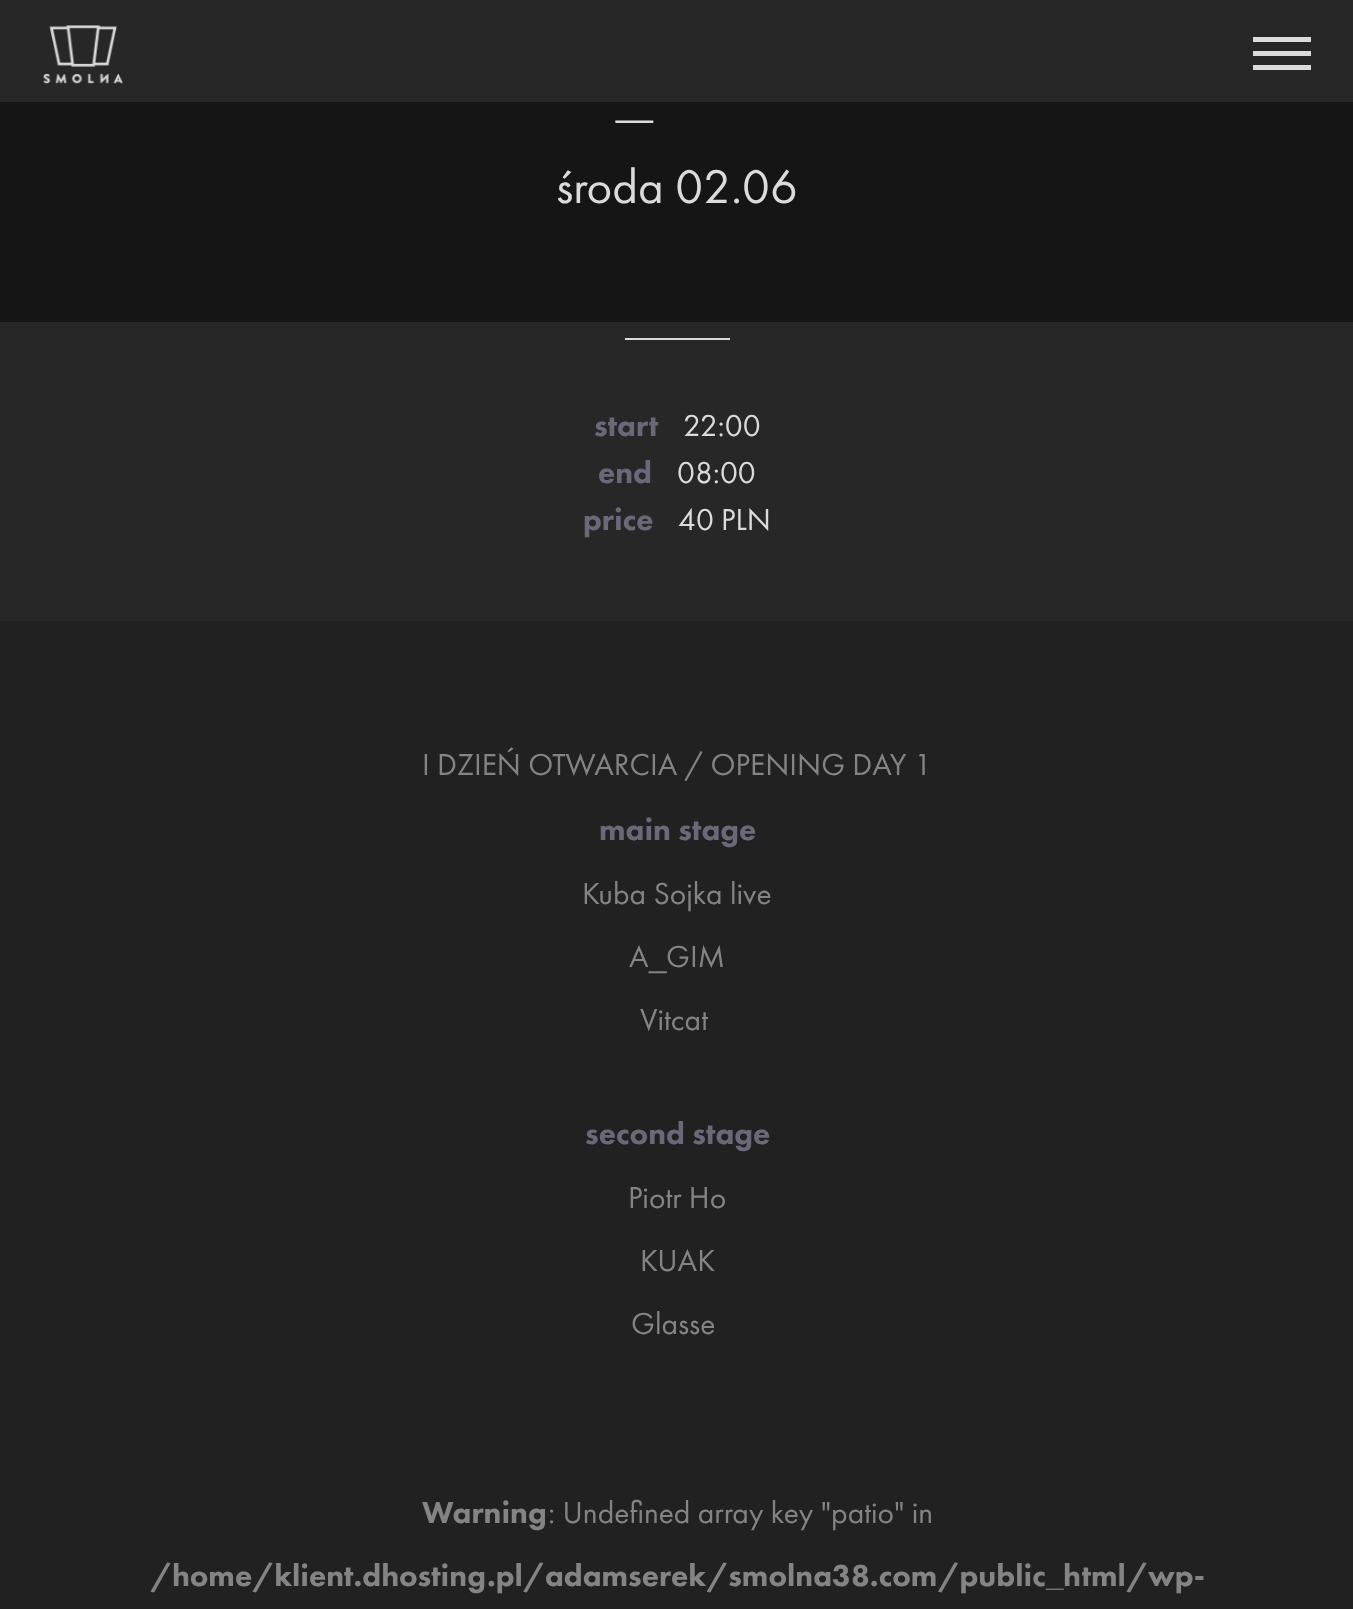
<!DOCTYPE html>
<meta charset="utf-8">
<style>body { margin: 0 } canvas { display: block }</style>
<canvas id="canvas" width="1353" height="1609"></canvas>
<script type="module">
  const canvas = document.getElementById("canvas");
  const g = canvas.getContext("2d");
  g.miterLimit = 4;
  g.fontKerning = "normal";
  function drawText(s, x, y, [font, color]) {
    g.font = font;
    g.fillStyle = color;
    g.fillText(s, x, y);
  }
  function fillBox(x, y, w, h, color) {
    g.fillStyle = color;
    g.fillRect(x, y, w, h);
  }
  async function drawPicture(src, x, y, w, h) {
    const img = new Image();
    img.src = src;
    await img.decode();
    g.drawImage(img, x, y, w, h);
  }

  const s1 = ["bold 66px Liberation Sans", "#DBDBDB"];
  const s2 = ["49px Futura PT", "#DBDBDB"];
  const s3 = ["900 31.5px Futura PT", "#6B6878"];
  const s4 = ["31.5px Futura PT", "#DBDBDB"];
  const s5 = ["31.5px Futura PT", "#848484"];
  const s6 = ["31.5px Liberation Sans", "#848484"];
  const s7 = ["900 31.5px Futura PT", "#848484"];
  const s8 = ["bold 31.5px Liberation Sans", "#848484"];

  fillBox(0, 0, 1353, 1609, "#212121");
  fillBox(0, 0, 1353, 102, "#272727");
  await drawPicture("pic1.png", 43, 25, 80, 59);
  fillBox(1253, 51, 58, 5, "#DBDBDB");
  fillBox(1253, 37, 58, 5, "#DBDBDB");
  fillBox(1253, 65, 58, 5, "#DBDBDB");
  fillBox(0, 102, 1353, 220, "#151515");
  drawText("_", 616, 115, s1);
  drawText("środa 02.06", 556, 203, s2);
  fillBox(0, 322, 1353, 299, "#272727");
  fillBox(625, 338, 105, 2, "#DBDBDB");
  drawText("start", 594, 436, s3);
  drawText("22:00", 683, 436, s4);
  drawText("end", 598, 483, s3);
  drawText("08:00", 677, 483, s4);
  drawText("price", 583, 530, s3);
  drawText("40 PLN", 678, 530, s4);
  drawText("I DZIEŃ OTWARCIA / OPENING DAY 1", 422, 775, s5);
  drawText("main stage", 599, 840, s3);
  drawText("Kuba Sojka live", 582, 904, s5);
  drawText("A", 629, 967, s5);
  drawText("GIM", 666, 967, s5);
  drawText("_", 649, 967, s6);
  drawText("Vitcat", 640, 1030, s5);
  drawText("second stage", 585, 1144, s3);
  drawText("Piotr Ho", 628, 1208, s5);
  drawText("KUAK", 640, 1271, s5);
  drawText("Glasse", 631, 1334, s5);
  drawText("Warning", 422, 1523, s7);
  drawText(": Undefined array key \"patio\" in", 548, 1523, s5);
  drawText("/home/klient.dhosting.pl/adamserek/smolna38.com/public", 150, 1586, s7);
  drawText("_", 1046, 1586, s8);
  drawText("html/wp-", 1063, 1586, s7);
</script>
